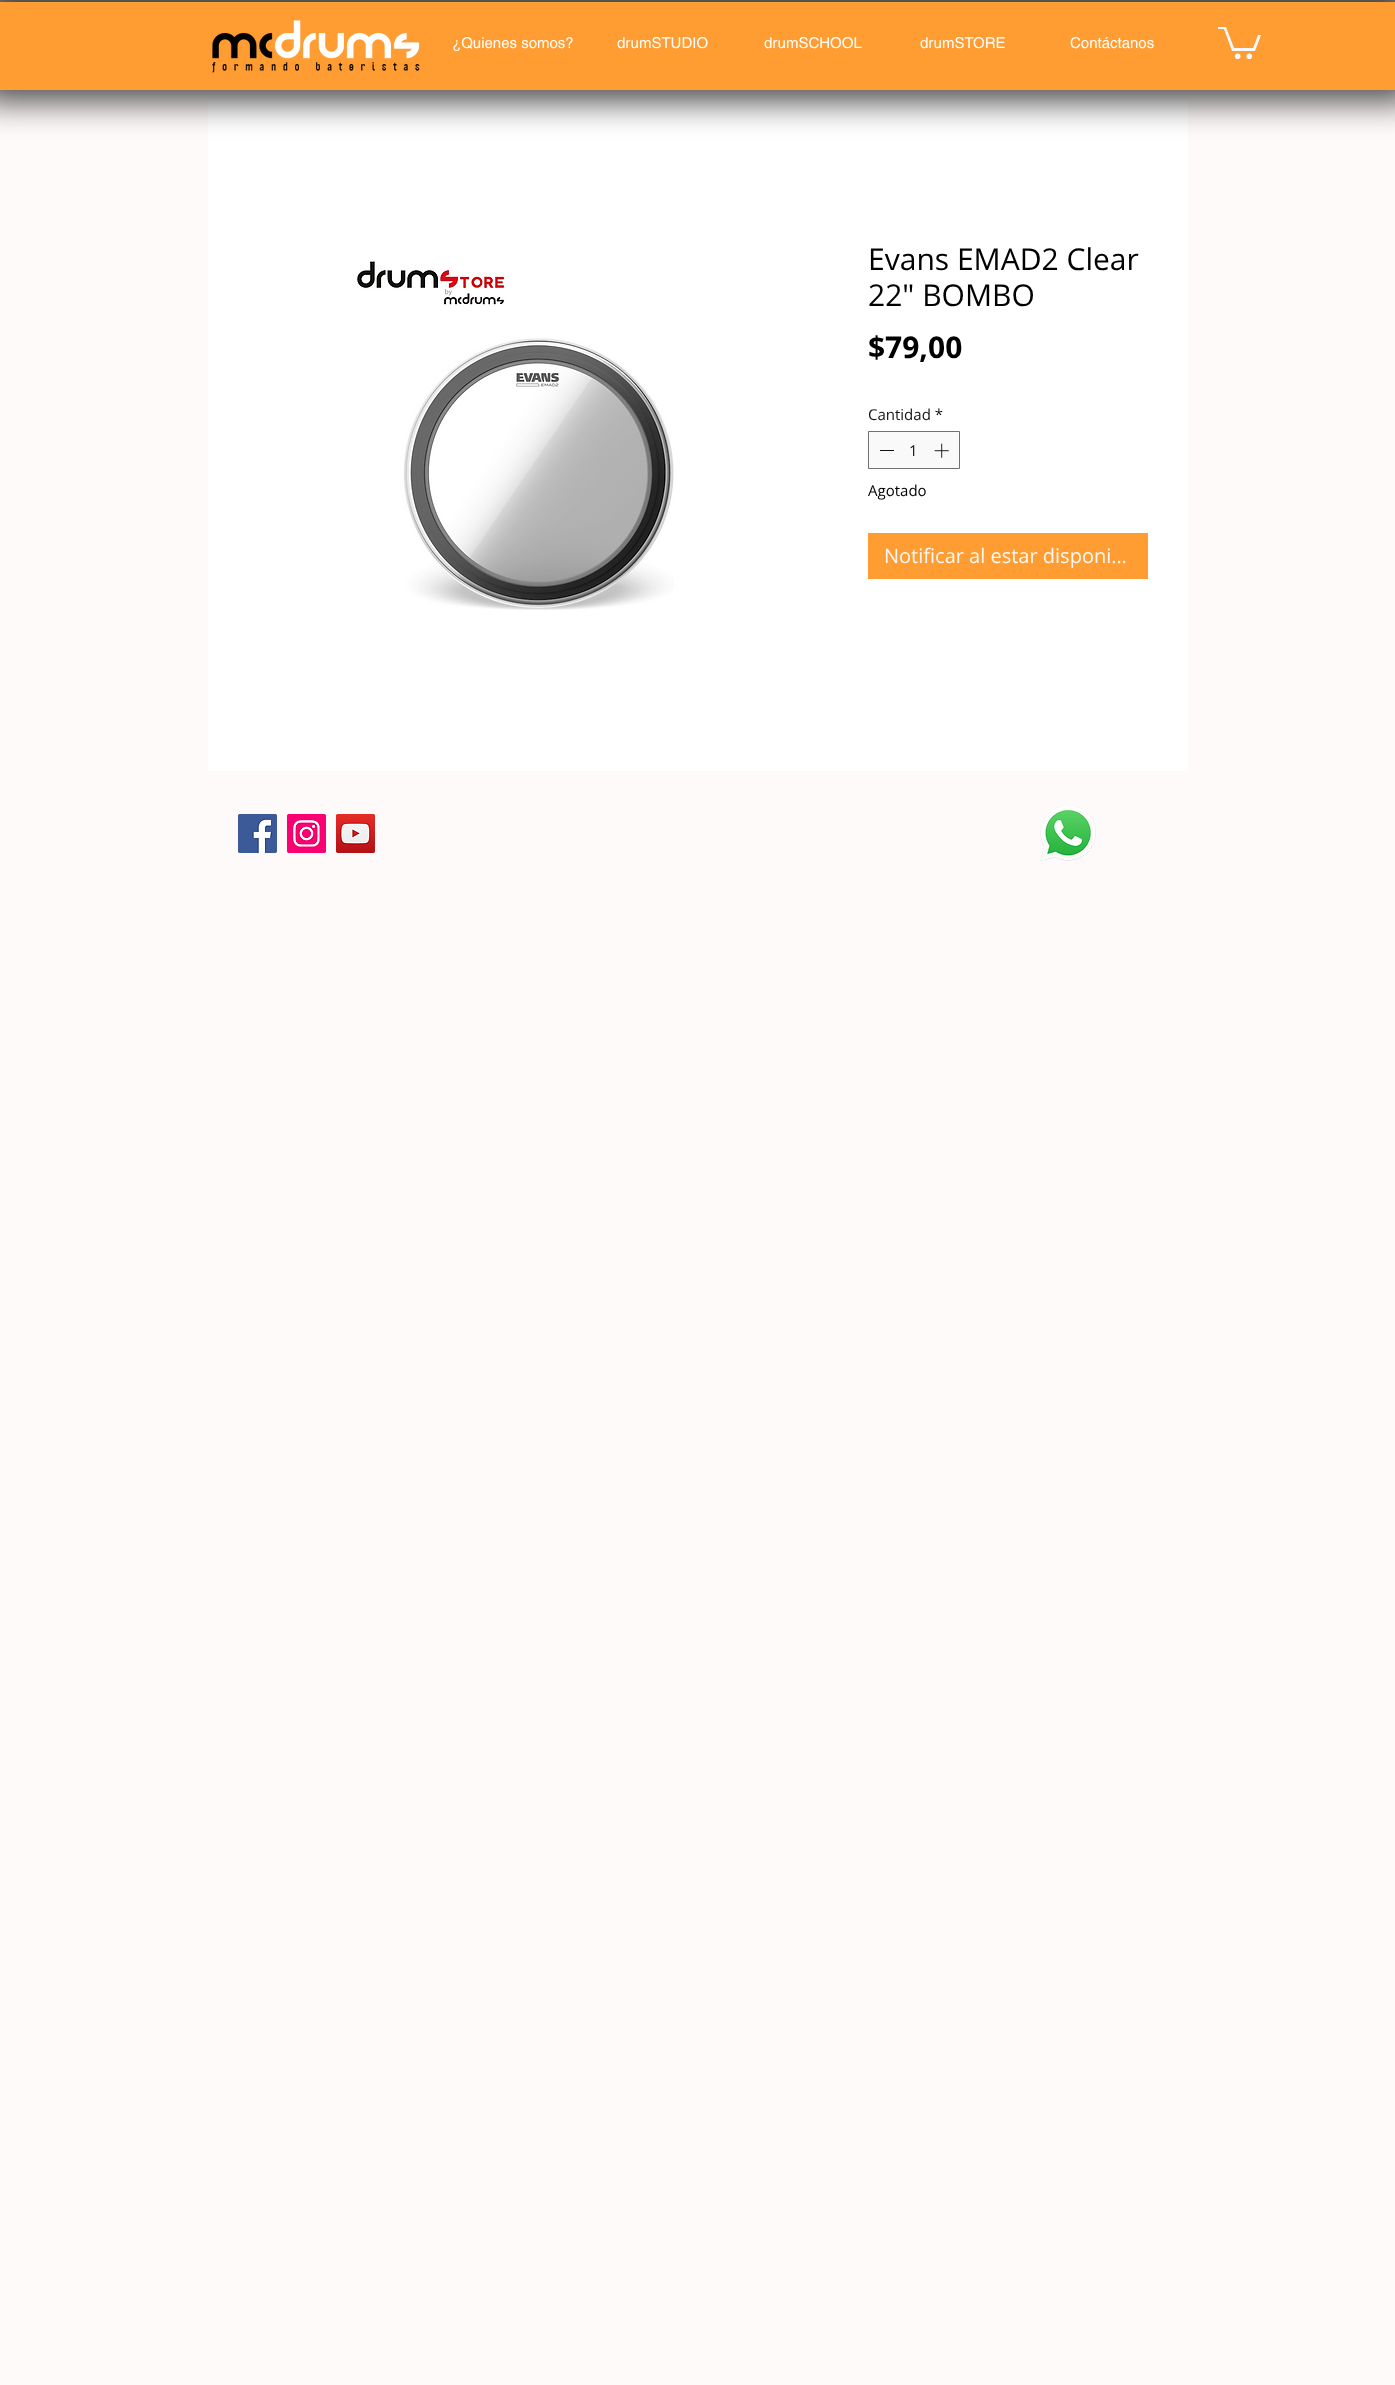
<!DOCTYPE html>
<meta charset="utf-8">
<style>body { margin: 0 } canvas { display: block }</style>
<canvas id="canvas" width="1395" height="2385"></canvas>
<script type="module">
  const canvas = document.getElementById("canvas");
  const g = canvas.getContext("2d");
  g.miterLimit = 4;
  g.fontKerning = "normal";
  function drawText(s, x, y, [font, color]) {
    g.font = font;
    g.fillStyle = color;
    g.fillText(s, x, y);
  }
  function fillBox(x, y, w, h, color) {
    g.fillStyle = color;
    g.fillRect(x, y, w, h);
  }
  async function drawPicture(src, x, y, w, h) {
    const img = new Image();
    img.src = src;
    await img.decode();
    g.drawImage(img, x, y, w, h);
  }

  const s1 = ["15px helvetica", "#FFFFFF"];
  const s2 = ["30px Open Sans", "#000000"];
  const s3 = ["bold 30px Open Sans", "#000000"];
  const s4 = ["15px Open Sans", "#141414"];
  const s5 = ["15px Open Sans", "#000000"];
  const s6 = ["20px 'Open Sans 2'", "#F9F9F9"];

  fillBox(0, 0, 1395, 2385, "#FFFAFA");
  fillBox(208, 100, 980, 671, "#FFFFFF");
  g.fillStyle = "rgba(0, 0, 0, 0.7)";
  g.filter = "blur(16.5px)";
  g.beginPath();
  g.rect(-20, -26, 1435, 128);
  g.fill();
  g.filter = "none";
  fillBox(0, 2, 1395, 88, "#FF9C32");
  await drawPicture("pic1.png", 212, 20, 208, 53);
  drawText("¿Quienes somos?", 452, 48, s1);
  drawText("drumSTUDIO", 617, 48, s1);
  drawText("drumSCHOOL", 764, 48, s1);
  drawText("drumSTORE", 920, 48, s1);
  drawText("Contáctanos", 1070, 48, s1);
  g.fillStyle = "#F9F9F9";
  g.beginPath();
  g.moveTo(1261, 35);
  g.lineTo(1255, 51);
  g.lineTo(1232, 51);
  g.lineTo(1224, 29);
  g.lineTo(1218, 29);
  g.lineTo(1218, 27);
  g.lineTo(1226, 27);
  g.lineTo(1234, 48);
  g.lineTo(1253, 48);
  g.lineTo(1258, 35);
  g.fill();
  g.beginPath();
  g.arc(1249.3, 56.3, 2.8, 0, Math.PI * 2);
  g.fill();
  g.beginPath();
  g.arc(1237.7, 56.3, 2.8, 0, Math.PI * 2);
  g.fill();
  await drawPicture("pic2.png", 357, 261, 317, 349);
  drawText("Evans EMAD2 Clear", 868, 270, s2);
  drawText("22\" BOMBO", 868, 306, s2);
  drawText("$79,00", 868, 358, s3);
  drawText("Cantidad *", 868, 420, s4);
  g.fillStyle = "#F9F9F9";
  g.beginPath();
  g.rect(868.5, 431.5, 91, 37);
  g.fill();
  g.strokeStyle = "#707070";
  g.stroke();
  fillBox(880, 450, 14, 1, "#141414");
  drawText("1", 909, 456, s4);
  await drawPicture("pic3.png", 934, 443, 15, 15);
  drawText("Agotado", 868, 496, s5);
  fillBox(868, 533, 280, 46, "#FF9D33");
  drawText("Notificar al estar disponi…", 884, 563, s6);
  await drawPicture("pic4.png", 238, 814, 39, 39);
  await drawPicture("pic5.png", 287, 814, 39, 39);
  await drawPicture("pic6.png", 336, 814, 39, 39);
  await drawPicture("pic7.png", 1040, 805, 56, 56);
</script>
